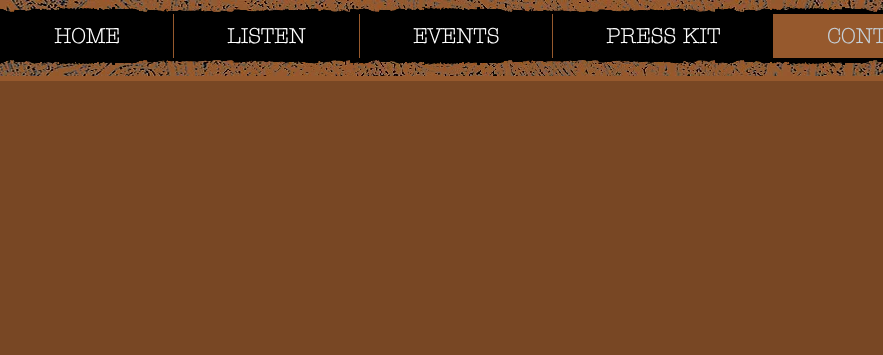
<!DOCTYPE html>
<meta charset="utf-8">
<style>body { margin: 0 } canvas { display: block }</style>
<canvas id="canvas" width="883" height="355"></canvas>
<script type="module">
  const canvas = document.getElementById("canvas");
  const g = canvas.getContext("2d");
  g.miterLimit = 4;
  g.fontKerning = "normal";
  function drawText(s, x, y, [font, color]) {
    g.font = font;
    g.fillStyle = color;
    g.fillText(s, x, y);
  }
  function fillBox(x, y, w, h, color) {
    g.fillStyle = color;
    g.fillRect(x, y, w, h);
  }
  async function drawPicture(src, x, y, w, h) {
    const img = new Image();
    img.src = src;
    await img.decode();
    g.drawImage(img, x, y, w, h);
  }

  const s1 = ["bold 21px 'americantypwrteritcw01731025'", "#FFFFFF"];
  const s2 = ["bold 21px 'americantypwrteritcw01731025'", "#C5D0D9"];

  fillBox(0, 0, 883, 355, "#784724");
  await drawPicture("pic1.png", 0, 0, 883, 76);
  await drawPicture("pic2.png", 0, 7, 883, 7);
  fillBox(0, 14, 773, 44, "#000000");
  drawText("HOME", 54, 43, s1);
  fillBox(173, 14, 1, 44, "#96592D");
  drawText("LISTEN", 227, 43, s1);
  fillBox(359, 14, 1, 44, "#96592D");
  drawText("EVENTS", 413, 43, s1);
  fillBox(552, 14, 1, 44, "#96592D");
  drawText("PRESS KIT", 606, 43, s1);
  fillBox(773, 14, 110, 44, "#96592D");
  drawText("CONT", 827, 43, s2);
  await drawPicture("pic3.png", 0, 58, 883, 7);
  fillBox(0, 76, 883, 5, "#96592D");
</script>
